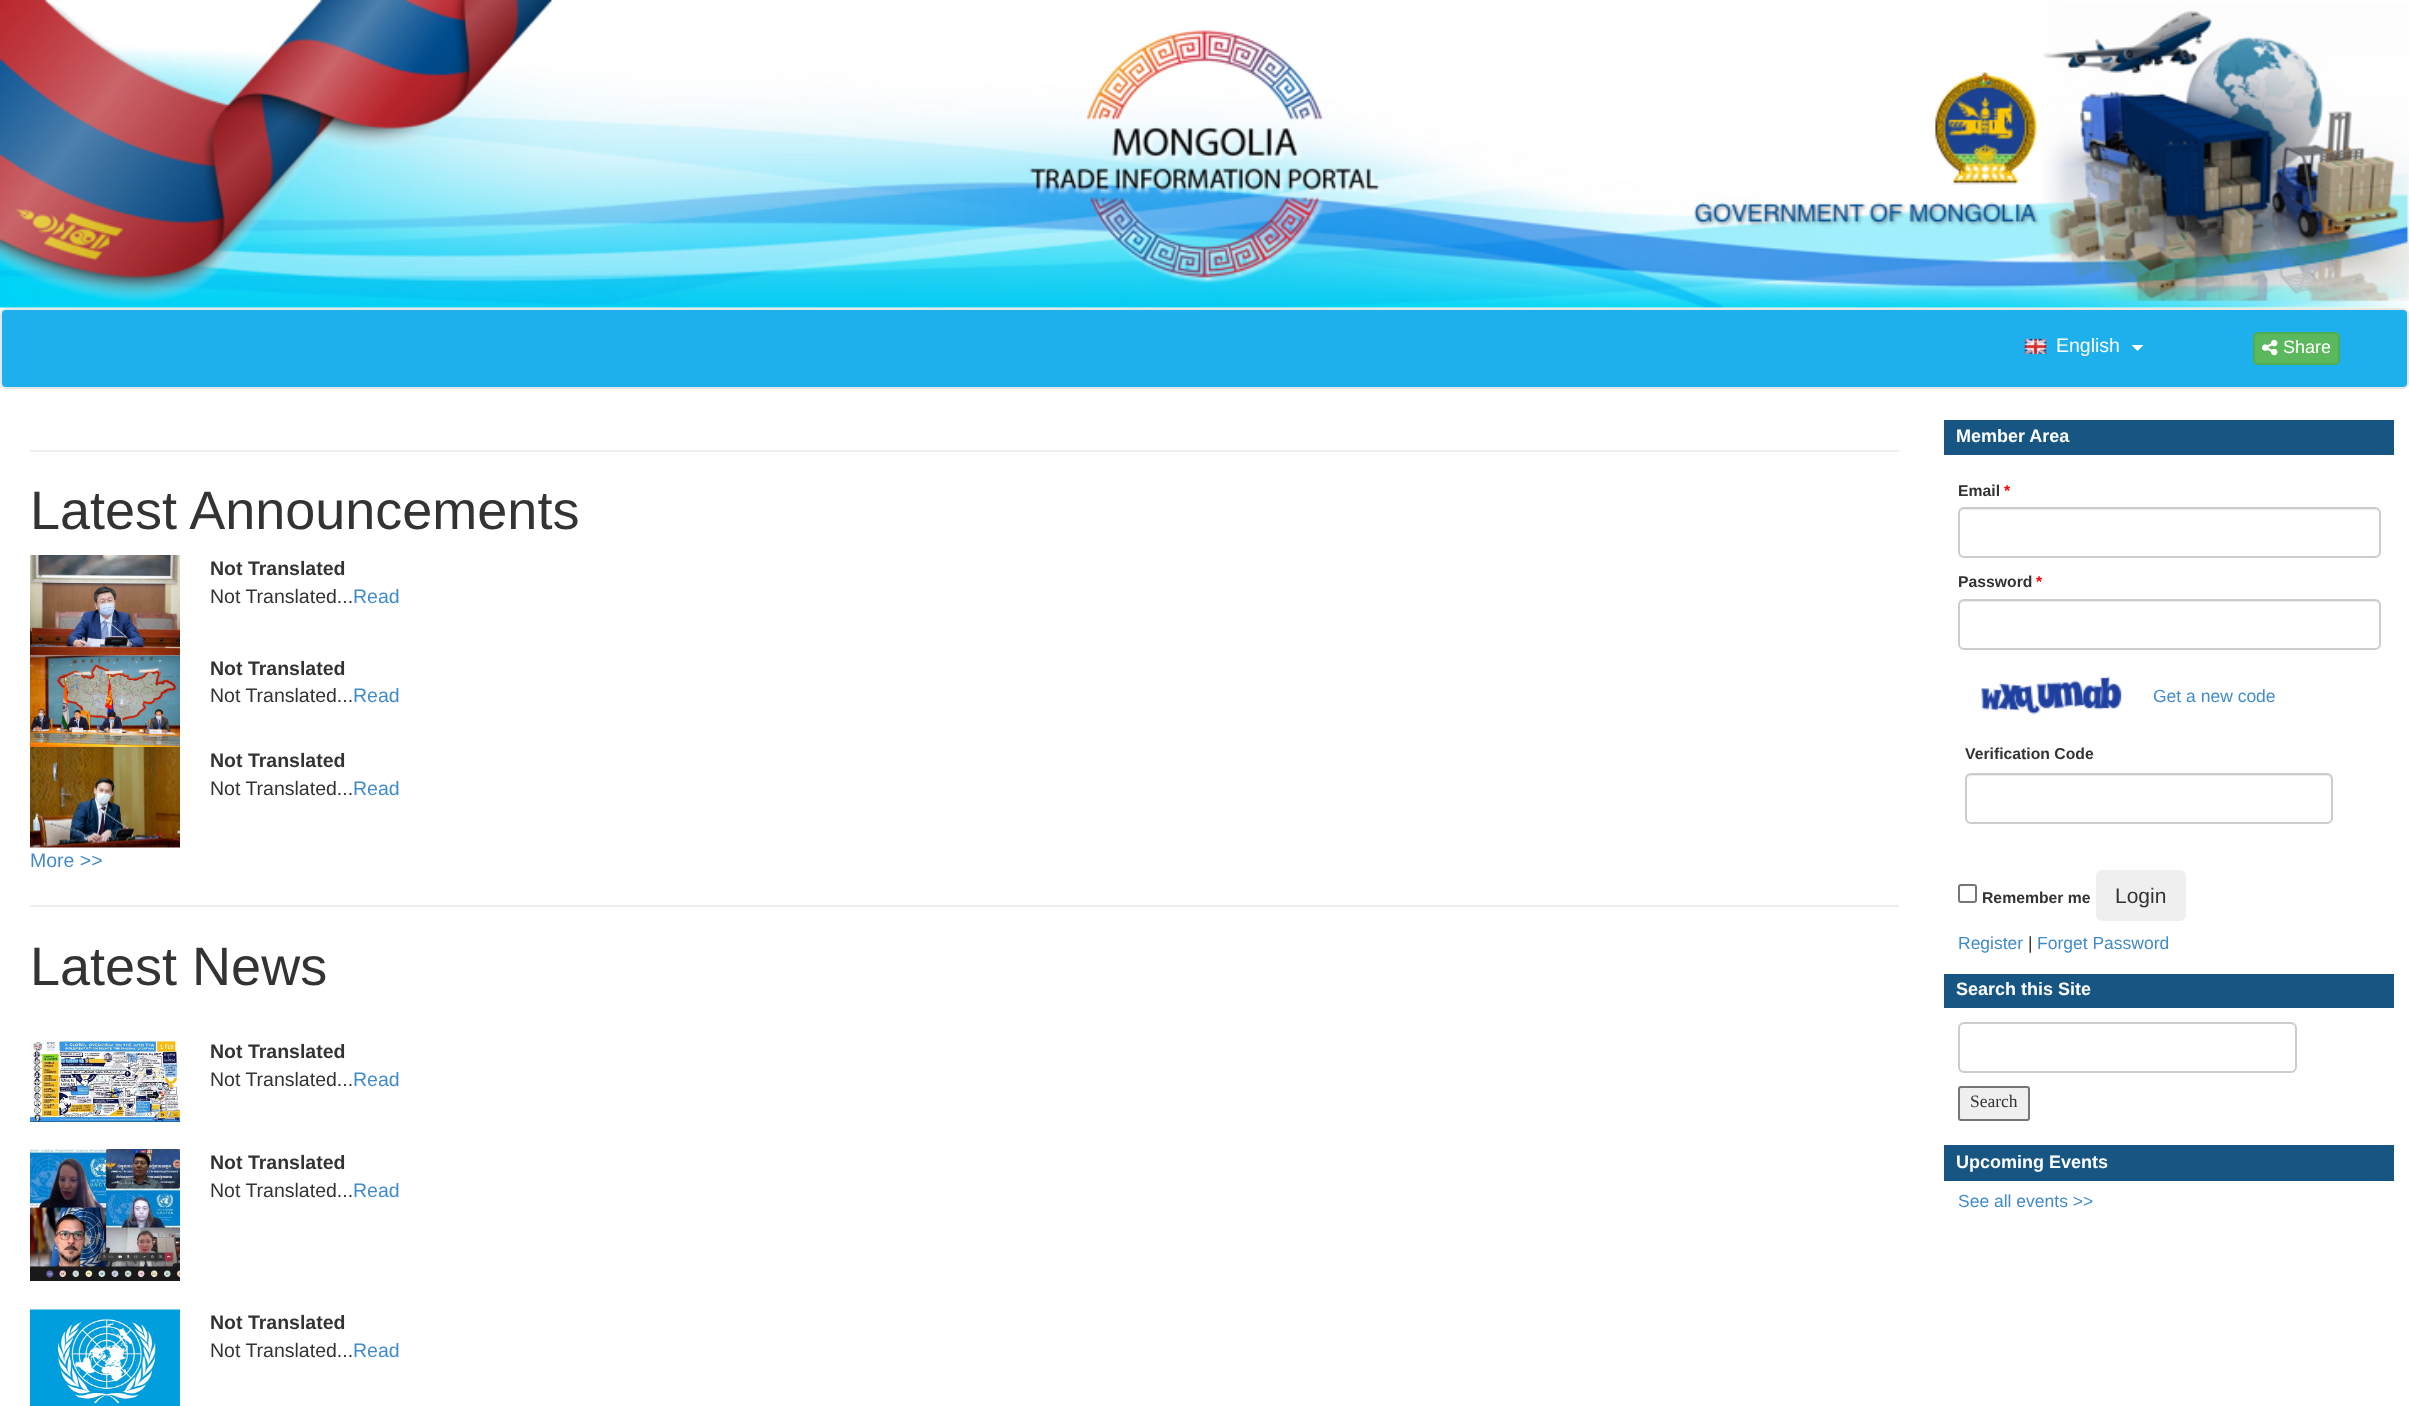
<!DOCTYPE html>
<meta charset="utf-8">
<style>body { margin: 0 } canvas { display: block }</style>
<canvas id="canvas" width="2409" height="1406"></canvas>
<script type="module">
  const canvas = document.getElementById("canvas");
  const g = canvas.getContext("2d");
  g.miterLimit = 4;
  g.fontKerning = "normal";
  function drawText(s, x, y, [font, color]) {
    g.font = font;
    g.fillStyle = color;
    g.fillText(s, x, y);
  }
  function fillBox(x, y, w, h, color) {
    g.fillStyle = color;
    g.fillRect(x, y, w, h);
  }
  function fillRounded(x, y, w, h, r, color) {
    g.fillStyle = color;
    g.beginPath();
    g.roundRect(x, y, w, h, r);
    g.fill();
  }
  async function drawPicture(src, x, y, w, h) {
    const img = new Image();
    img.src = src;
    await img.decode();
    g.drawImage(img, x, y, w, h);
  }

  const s1 = ["19.5px Liberation Sans", "#FFFFFF"];
  const s2 = ["18px Liberation Sans", "#FFFFFF"];
  const s3 = ["54px Liberation Sans", "#333333"];
  const s4 = ["bold 19.5px Liberation Sans", "#333333"];
  const s5 = ["19.5px Liberation Sans", "#333333"];
  const s6 = ["19.5px Liberation Sans", "#428BCA"];
  const s7 = ["bold 18px Liberation Sans", "#FFFFFF"];
  const s8 = ["bold 15.75px Liberation Sans", "#333333"];
  const s9 = ["bold 15.75px Liberation Sans", "#FF0000"];
  const s10 = ["17.5px Liberation Sans", "#428BCA"];
  const s11 = ["21px Liberation Sans", "#333333"];
  const s12 = ["17.5px Liberation Sans", "#333333"];
  const s13 = ["17.5px Liberation Serif", "#333333"];

  fillBox(0, 0, 2409, 1406, "#FFFFFF");
  await drawPicture("pic1.png", 0, 0, 2409, 308);
  g.fillStyle = "#1EAFED";
  g.beginPath();
  g.roundRect(1, 309, 2407, 79, 5);
  g.fill();
  g.strokeStyle = "#E7E7E7";
  g.lineWidth = 2;
  g.stroke();
  await drawPicture("pic2.png", 2024, 338, 23, 16);
  drawText("English", 2056, 352, s1);
  g.beginPath();
  g.moveTo(2131.5, 345);
  g.lineTo(2143.5, 345);
  g.lineTo(2137.5, 351);
  g.closePath();
  g.fill();
  g.fillStyle = "#5CB85C";
  g.beginPath();
  g.roundRect(2254, 333, 85, 31, 4);
  g.fill();
  g.strokeStyle = "#4CAE4C";
  g.stroke();
  await drawPicture("pic3.png", 2262, 339, 16, 17);
  drawText("Share", 2283, 353, s2);
  fillBox(30, 450, 1869, 2, "#EEEEEE");
  drawText("Latest Announcements", 30, 529, s3);
  await drawPicture("pic4.png", 30, 555, 150, 101);
  drawText("Not Translated", 210, 575, s4);
  drawText("Not Translated...", 210, 603, s5);
  drawText("Read", 353, 603, s6);
  await drawPicture("pic5.png", 30, 655, 150, 92);
  drawText("Not Translated", 210, 675, s4);
  drawText("Not Translated...", 210, 702, s5);
  drawText("Read", 353, 702, s6);
  await drawPicture("pic6.png", 30, 747, 150, 101);
  drawText("Not Translated", 210, 767, s4);
  drawText("Not Translated...", 210, 795, s5);
  drawText("Read", 353, 795, s6);
  drawText("More >>", 30, 867, s6);
  fillBox(30, 905, 1869, 2, "#EEEEEE");
  drawText("Latest News", 30, 985, s3);
  await drawPicture("pic7.png", 30, 1039, 150, 83);
  drawText("Not Translated", 210, 1058, s4);
  drawText("Not Translated...", 210, 1086, s5);
  drawText("Read", 353, 1086, s6);
  await drawPicture("pic8.png", 30, 1149, 150, 132);
  drawText("Not Translated", 210, 1169, s4);
  drawText("Not Translated...", 210, 1197, s5);
  drawText("Read", 353, 1197, s6);
  await drawPicture("pic9.png", 30, 1309, 150, 97);
  drawText("Not Translated", 210, 1329, s4);
  drawText("Not Translated...", 210, 1357, s5);
  drawText("Read", 353, 1357, s6);
  fillBox(1944, 420, 450, 35, "#175682");
  drawText("Member Area", 1956, 442, s7);
  drawText("Email", 1958, 496, s8);
  drawText("*", 2004, 496, s9);
  g.fillStyle = "#ECECEC";
  g.beginPath();
  g.moveTo(1964, 510);
  g.lineTo(2374, 510);
  g.bezierCurveTo(2377, 510, 2379, 512, 2379, 514);
  g.bezierCurveTo(2379, 511, 2377, 509, 2374, 509);
  g.lineTo(1964, 509);
  g.bezierCurveTo(1961, 509, 1959, 511, 1959, 514);
  g.bezierCurveTo(1959, 512, 1961, 510, 1964, 510);
  g.closePath();
  g.fill();
  g.beginPath();
  g.roundRect(1959, 508, 421, 49, 5);
  g.strokeStyle = "#CCCCCC";
  g.stroke();
  drawText("Password", 1958, 587, s8);
  drawText("*", 2036, 587, s9);
  g.fillStyle = "#ECECEC";
  g.beginPath();
  g.moveTo(1964, 602);
  g.lineTo(2374, 602);
  g.bezierCurveTo(2377, 602, 2379, 604, 2379, 606);
  g.bezierCurveTo(2379, 603, 2377, 600, 2374, 600);
  g.lineTo(1964, 600);
  g.bezierCurveTo(1961, 600, 1959, 603, 1959, 606);
  g.bezierCurveTo(1959, 604, 1961, 602, 1964, 602);
  g.closePath();
  g.fill();
  g.beginPath();
  g.roundRect(1959, 600, 421, 49, 5);
  g.stroke();
  await drawPicture("pic10.png", 1981, 676, 141, 39);
  drawText("Get a new code", 2153, 702, s10);
  drawText("Verification Code", 1965, 759, s8);
  g.fillStyle = "#ECECEC";
  g.beginPath();
  g.moveTo(1971, 776);
  g.lineTo(2326, 776);
  g.bezierCurveTo(2329, 776, 2331, 778, 2331, 780);
  g.lineTo(2331, 779);
  g.bezierCurveTo(2331, 776, 2329, 774, 2326, 774);
  g.lineTo(1972, 774);
  g.bezierCurveTo(1970, 774, 1968, 776, 1967, 778);
  g.bezierCurveTo(1968, 777, 1970, 776, 1971, 776);
  g.closePath();
  g.fill();
  g.beginPath();
  g.roundRect(1966, 774, 366, 49, 5);
  g.stroke();
  g.beginPath();
  g.roundRect(1959, 885, 17, 17, 2);
  g.strokeStyle = "#767676";
  g.stroke();
  drawText("Remember me", 1982, 903, s8);
  fillRounded(2096, 870, 90, 51, 6, "#EFEFEF");
  drawText("Login", 2115, 903, s11);
  drawText("Register", 1958, 949, s10);
  drawText("|", 2028, 949, s12);
  drawText("Forget Password", 2037, 949, s10);
  fillBox(1944, 974, 450, 34, "#175682");
  drawText("Search this Site", 1956, 995, s7);
  g.fillStyle = "#ECECEC";
  g.beginPath();
  g.moveTo(1964, 1024);
  g.lineTo(2290, 1024);
  g.bezierCurveTo(2293, 1024, 2295, 1027, 2295, 1029);
  g.bezierCurveTo(2295, 1026, 2293, 1023, 2290, 1023);
  g.lineTo(1964, 1023);
  g.bezierCurveTo(1961, 1023, 1959, 1026, 1959, 1029);
  g.bezierCurveTo(1959, 1027, 1961, 1024, 1964, 1024);
  g.closePath();
  g.fill();
  g.beginPath();
  g.roundRect(1959, 1023, 337, 49, 5);
  g.strokeStyle = "#CCCCCC";
  g.stroke();
  g.fillStyle = "#EFEFEF";
  g.beginPath();
  g.roundRect(1959, 1087, 70, 33, 2);
  g.fill();
  g.strokeStyle = "#767676";
  g.stroke();
  drawText("Search", 1970, 1107, s13);
  fillBox(1944, 1145, 450, 36, "#175682");
  drawText("Upcoming Events", 1956, 1168, s7);
  drawText("See all events >>", 1958, 1207, s10);
</script>
